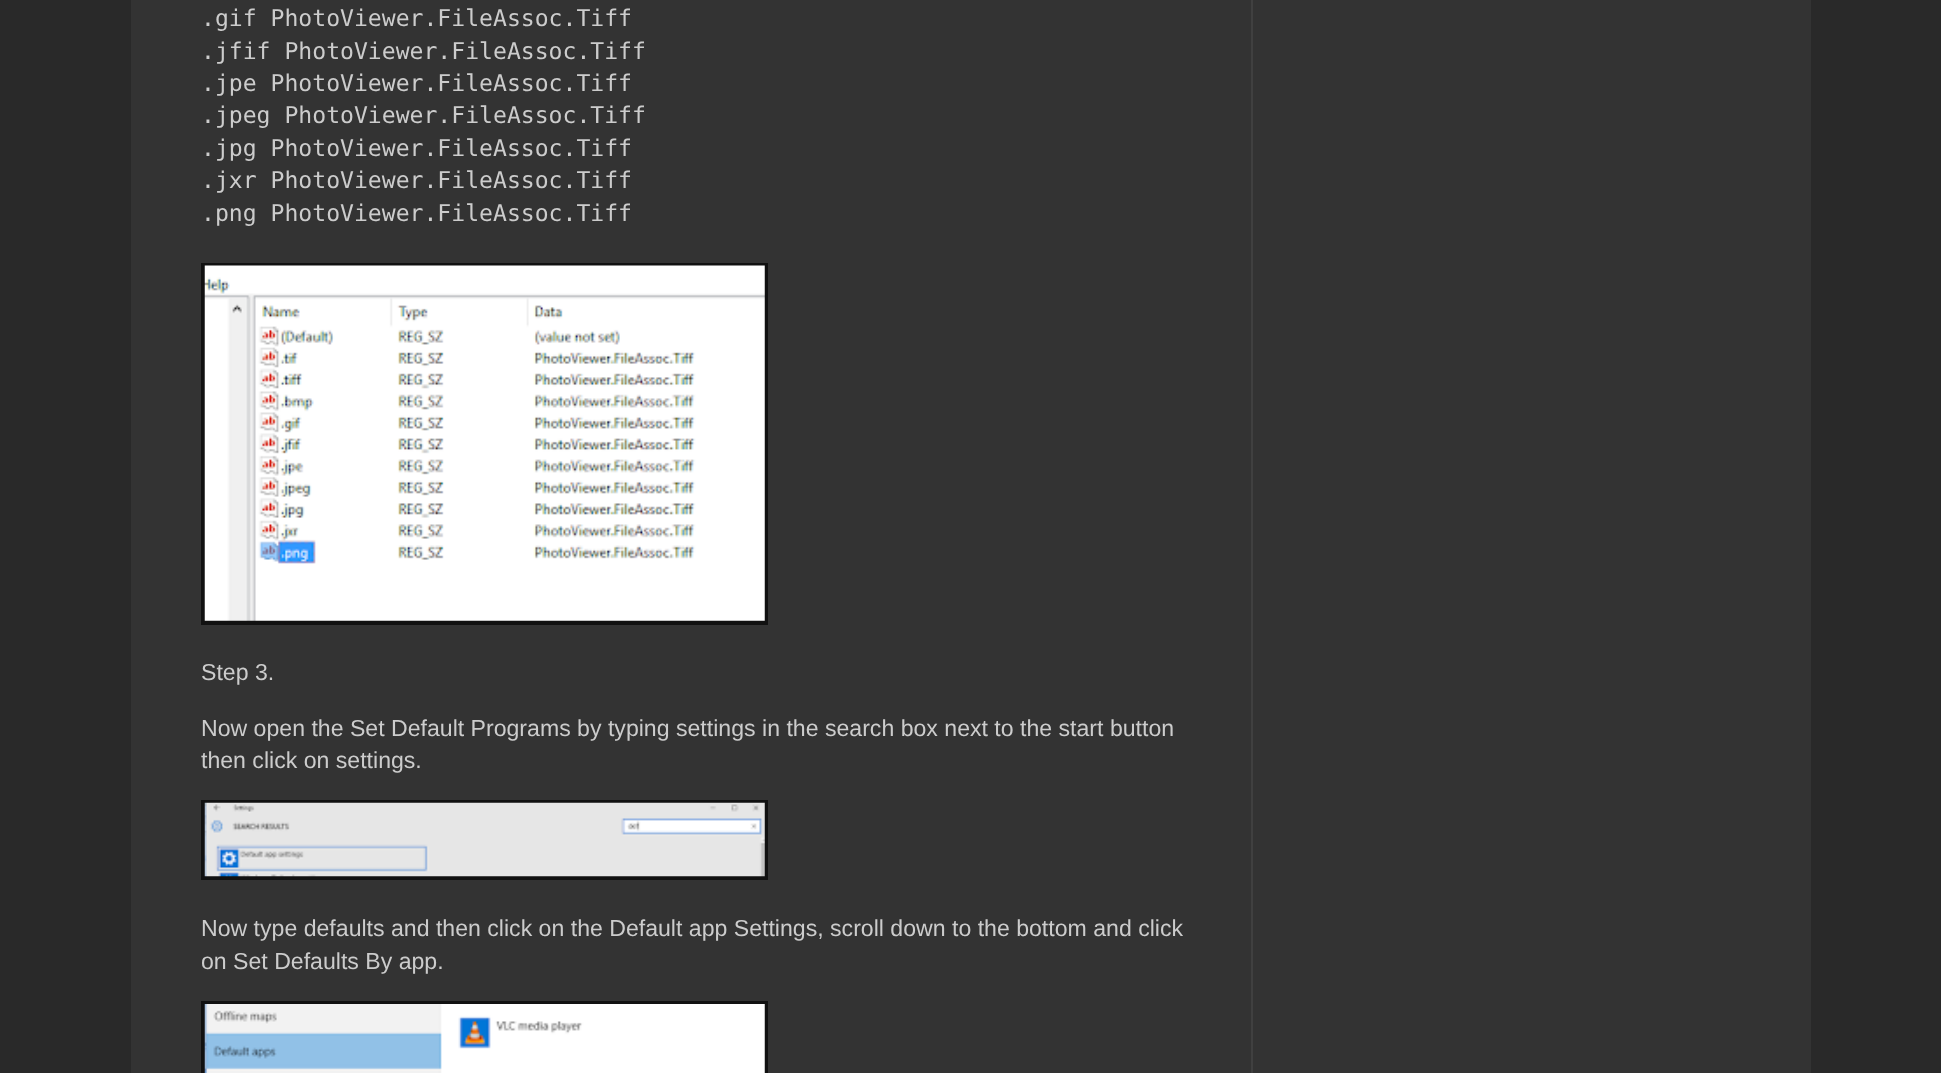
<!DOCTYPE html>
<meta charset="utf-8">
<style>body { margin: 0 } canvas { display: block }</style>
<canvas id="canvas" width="1941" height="1073"></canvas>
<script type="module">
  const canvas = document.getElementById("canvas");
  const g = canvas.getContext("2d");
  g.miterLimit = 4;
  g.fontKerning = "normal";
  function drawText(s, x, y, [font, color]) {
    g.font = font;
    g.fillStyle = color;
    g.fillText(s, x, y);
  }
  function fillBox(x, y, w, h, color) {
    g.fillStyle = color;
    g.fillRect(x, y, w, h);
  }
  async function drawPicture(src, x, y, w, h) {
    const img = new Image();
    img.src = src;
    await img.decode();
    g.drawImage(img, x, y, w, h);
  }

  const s1 = ["23.1px DejaVu Sans Mono", "#CCCCCC"];
  const s2 = ["23.1px Liberation Sans", "#CCCCCC"];

  fillBox(0, 0, 1941, 1073, "#292929");
  fillBox(131, 0, 1680, 1073, "#333333");
  drawText(".gif PhotoViewer.FileAssoc.Tiff", 201, 26, s1);
  drawText(".jfif PhotoViewer.FileAssoc.Tiff", 201, 59, s1);
  drawText(".jpe PhotoViewer.FileAssoc.Tiff", 201, 91, s1);
  drawText(".jpeg PhotoViewer.FileAssoc.Tiff", 201, 123, s1);
  drawText(".jpg PhotoViewer.FileAssoc.Tiff", 201, 156, s1);
  drawText(".jxr PhotoViewer.FileAssoc.Tiff", 201, 188, s1);
  drawText(".png PhotoViewer.FileAssoc.Tiff", 201, 221, s1);
  fillBox(201, 263, 567, 362, "#111111");
  await drawPicture("pic1.png", 204, 265, 561, 356);
  drawText("Step 3.", 201, 680, s2);
  drawText("Now open the Set Default Programs by typing settings", 201, 736, s2);
  drawText("in the search box next to the start button", 762, 736, s2);
  drawText("then click on settings.", 201, 768, s2);
  fillBox(201, 800, 567, 80, "#111111");
  await drawPicture("pic2.png", 204, 802, 561, 75);
  drawText("Now type defaults and then click on the Default app Settings, scroll down to the bottom and click", 201, 936, s2);
  drawText("on Set Defaults By app.", 201, 969, s2);
  fillBox(201, 1001, 567, 72, "#111111");
  await drawPicture("pic3.png", 204, 1004, 561, 69);
  fillBox(1251, 0, 2, 1073, "#404040");
</script>
